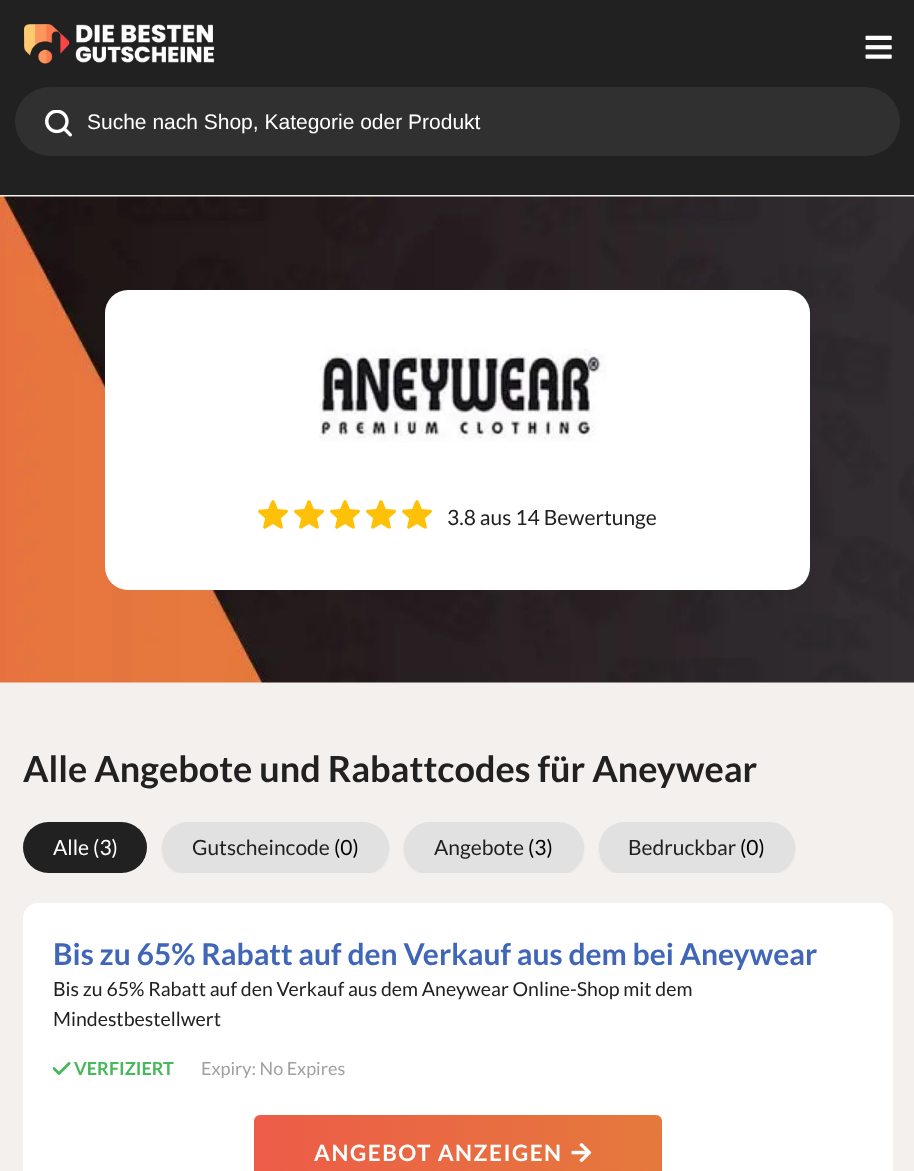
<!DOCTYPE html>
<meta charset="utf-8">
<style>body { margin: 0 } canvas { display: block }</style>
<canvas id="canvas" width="914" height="1171"></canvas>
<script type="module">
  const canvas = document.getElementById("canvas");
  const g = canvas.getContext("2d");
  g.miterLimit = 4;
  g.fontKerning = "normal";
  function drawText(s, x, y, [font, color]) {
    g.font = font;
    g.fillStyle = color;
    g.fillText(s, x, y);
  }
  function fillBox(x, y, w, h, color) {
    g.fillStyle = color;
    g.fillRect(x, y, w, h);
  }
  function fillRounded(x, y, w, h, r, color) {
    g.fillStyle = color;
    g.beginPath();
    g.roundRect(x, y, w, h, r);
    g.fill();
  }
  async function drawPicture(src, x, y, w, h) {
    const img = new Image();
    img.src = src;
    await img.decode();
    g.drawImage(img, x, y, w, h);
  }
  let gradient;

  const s1 = ["21px Liberation Sans", "#FFFFFF"];
  const s2 = ["21px Lato", "#212121"];
  const s3 = ["bold 36px Lato", "#212121"];
  const s4 = ["21px Lato", "#FFFFFF"];
  const s5 = ["21px Lato", "#000000"];
  const s6 = ["bold 30px Lato", "#4066B8"];
  const s7 = ["19.5px Lato", "#212121"];
  const s8 = ["bold 18px Lato", "#47B85B"];
  const s9 = ["18px Lato", "#A1A1A1"];
  const s10 = ["bold 22.5px Lato", "#FFFFFF"];

  fillBox(0, 0, 914, 1171, "#F4F0EE");
  fillBox(0, 0, 914, 195, "#212121");
  await drawPicture("pic1.png", 24, 24, 191, 40);
  await drawPicture("pic2.png", 865, 35, 27, 24);
  fillRounded(15, 87, 885, 69, 34.5, "#303030");
  await drawPicture("pic3.png", 45, 110, 27, 27);
  drawText("Suche nach Shop, Kategorie oder Produkt", 87, 129, s1);
  await drawPicture("pic4.png", 0, 196, 914, 487);
  fillRounded(105, 290, 705, 300, 23, "#FFFFFF");
  await drawPicture("pic5.png", 319, 348, 288, 94);
  await drawPicture("pic6.png", 258, 500, 174, 29);
  drawText("3.8 aus 14 Bewertunge", 447, 525, s2);
  drawText("Alle Angebote und Rabattcodes für Aneywear", 23, 782, s3);
  fillRounded(23, 822, 124, 51, 25.5, "#212121");
  drawText("Alle (3)", 53, 855, s4);
  g.save();
  g.beginPath();
  g.rect(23, 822, 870, 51);
  g.clip();
  g.fillStyle = "rgba(0, 0, 0, 0.08)";
  g.filter = "blur(1px)";
  g.beginPath();
  g.roundRect(162, 824, 227, 51, 25.5);
  g.fill();
  g.filter = "none";
  g.restore();
  fillRounded(162, 822, 227, 51, 25.5, "#E1E1E1");
  drawText("Gutscheincode", 192, 855, s2);
  drawText("(0)", 334, 855, s5);
  g.save();
  g.beginPath();
  g.rect(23, 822, 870, 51);
  g.clip();
  g.fillStyle = "rgba(0, 0, 0, 0.08)";
  g.filter = "blur(1px)";
  g.beginPath();
  g.roundRect(404, 824, 180, 51, 25.5);
  g.fill();
  g.filter = "none";
  g.restore();
  fillRounded(404, 822, 180, 51, 25.5, "#E1E1E1");
  drawText("Angebote", 434, 855, s2);
  drawText("(3)", 528, 855, s5);
  g.save();
  g.beginPath();
  g.rect(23, 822, 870, 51);
  g.clip();
  g.fillStyle = "rgba(0, 0, 0, 0.08)";
  g.filter = "blur(1px)";
  g.beginPath();
  g.roundRect(599, 824, 196, 51, 25.5);
  g.fill();
  g.filter = "none";
  g.restore();
  fillRounded(599, 822, 196, 51, 25.5, "#E1E1E1");
  drawText("Bedruckbar", 628, 855, s2);
  drawText("(0)", 740, 855, s5);
  fillRounded(23, 903, 870, 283, 15, "#FFFFFF");
  drawText("Bis zu 65% Rabatt auf den Verkauf aus dem bei Aneywear", 53, 965, s6);
  drawText("Bis zu 65% Rabatt auf den Verkauf aus dem Aneywear Online-Shop mit dem", 53, 996, s7);
  drawText("Mindestbestellwert", 53, 1026, s7);
  await drawPicture("pic7.png", 53, 1062, 18, 13);
  drawText("VERFIZIERT", 74, 1075, s8);
  drawText("Expiry: No Expires", 201, 1075, s9);
  gradient = g.createLinearGradient(254, 1152, 662, 1152);
  gradient.addColorStop(0, "#ED5C48");
  gradient.addColorStop(1, "#E5793C");
  g.fillStyle = gradient;
  g.beginPath();
  g.roundRect(254, 1115, 408, 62, 6);
  g.fill();
  g.letterSpacing = "1.5px";
  drawText("ANGEBOT ANZEIGEN", 314, 1161, s10);
  await drawPicture("pic8.png", 571, 1143, 21, 20);
</script>
